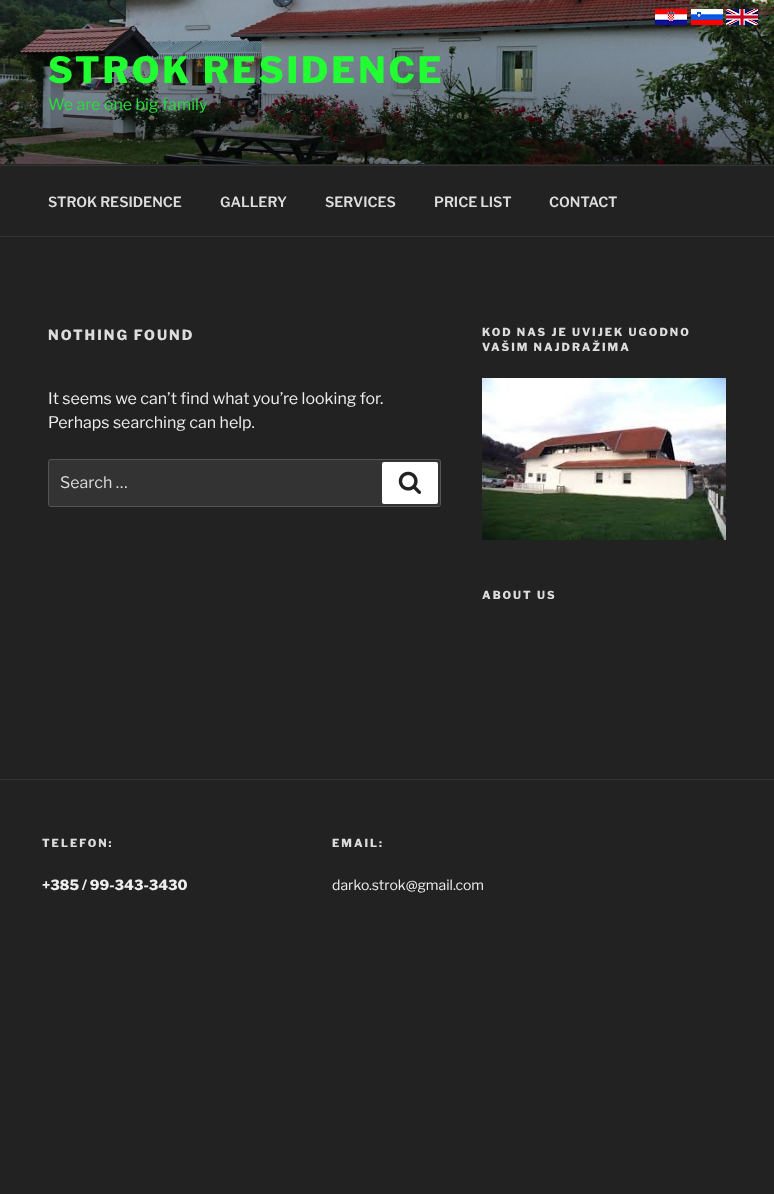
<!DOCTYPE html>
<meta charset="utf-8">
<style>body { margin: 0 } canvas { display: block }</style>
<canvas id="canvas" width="774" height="1194"></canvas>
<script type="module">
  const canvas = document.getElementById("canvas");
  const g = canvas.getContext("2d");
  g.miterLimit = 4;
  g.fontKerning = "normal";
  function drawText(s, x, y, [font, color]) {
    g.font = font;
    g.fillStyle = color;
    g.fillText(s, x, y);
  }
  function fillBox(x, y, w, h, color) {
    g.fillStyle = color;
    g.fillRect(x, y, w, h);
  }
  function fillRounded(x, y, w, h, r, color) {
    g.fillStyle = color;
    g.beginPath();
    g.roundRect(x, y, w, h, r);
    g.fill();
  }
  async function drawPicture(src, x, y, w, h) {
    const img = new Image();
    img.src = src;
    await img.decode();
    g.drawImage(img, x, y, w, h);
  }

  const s1 = ["100 36px Libre Franklin", "#21FF33"];
  const s2 = ["100 16px 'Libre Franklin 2'", "#29DD3A"];
  const s3 = ["100 14px 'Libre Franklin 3'", "#DDDDDD"];
  const s4 = ["100 14px Libre Franklin", "#DDDDDD"];
  const s5 = ["100 16px 'Libre Franklin 2'", "#EEEEEE"];
  const s6 = ["100 16px 'Libre Franklin 2'", "#DDDDDD"];
  const s7 = ["100 11px Libre Franklin", "#DDDDDD"];
  const s8 = ["100 14px Libre Franklin", "#EEEEEE"];
  const s9 = ["100 14px 'Libre Franklin 2'", "#EEEEEE"];

  fillBox(0, 0, 774, 1194, "#222222");
  fillBox(0, 164, 774, 1, "#262626");
  await drawPicture("pic1.png", 0, 0, 774, 164);
  await drawPicture("pic2.png", 655, 9, 32, 16);
  await drawPicture("pic3.png", 691, 9, 32, 16);
  await drawPicture("pic4.png", 726, 9, 32, 16);
  g.letterSpacing = "2.9px";
  drawText("STROK RESIDENCE", 48, 83, s1);
  g.letterSpacing = "0px";
  drawText("We are one big family", 48, 110, s2);
  fillBox(0, 165, 774, 1, "#333333");
  fillBox(0, 236, 774, 1, "#333333");
  drawText("STROK RESIDENCE", 48, 207, s3);
  drawText("GALLERY", 220, 207, s3);
  drawText("SERVICES", 325, 207, s3);
  drawText("PRICE LIST", 434, 207, s3);
  drawText("CONTACT", 549, 207, s3);
  g.letterSpacing = "2px";
  drawText("NOTHING FOUND", 48, 340, s4);
  g.letterSpacing = "0px";
  drawText("It seems we can’t find what you’re looking for.", 48, 404, s5);
  drawText("Perhaps searching can help.", 48, 428, s5);
  g.fillStyle = "#333333";
  g.beginPath();
  g.roundRect(48.5, 459.5, 392, 47, 2.5);
  g.fill();
  g.strokeStyle = "#555555";
  g.stroke();
  drawText("Search …", 60, 488, s6);
  fillRounded(382, 462, 56, 42, 2, "#FFFFFF");
  await drawPicture("pic5.png", 398, 471, 23, 23);
  g.letterSpacing = "2px";
  drawText("KOD NAS JE UVIJEK UGODNO", 482, 336, s7);
  drawText("VAŠIM NAJDRAŽIMA", 482, 351, s7);
  await drawPicture("pic6.png", 482, 378, 244, 162);
  drawText("ABOUT US", 482, 599, s7);
  fillBox(0, 779, 774, 1, "#333333");
  drawText("TELEFON:", 42, 847, s7);
  g.letterSpacing = "0px";
  drawText("+385 / 99-343-3430", 42, 890, s8);
  g.letterSpacing = "2px";
  drawText("EMAIL:", 332, 847, s7);
  g.letterSpacing = "0px";
  drawText("darko.strok@gmail.com", 332, 890, s9);
</script>
